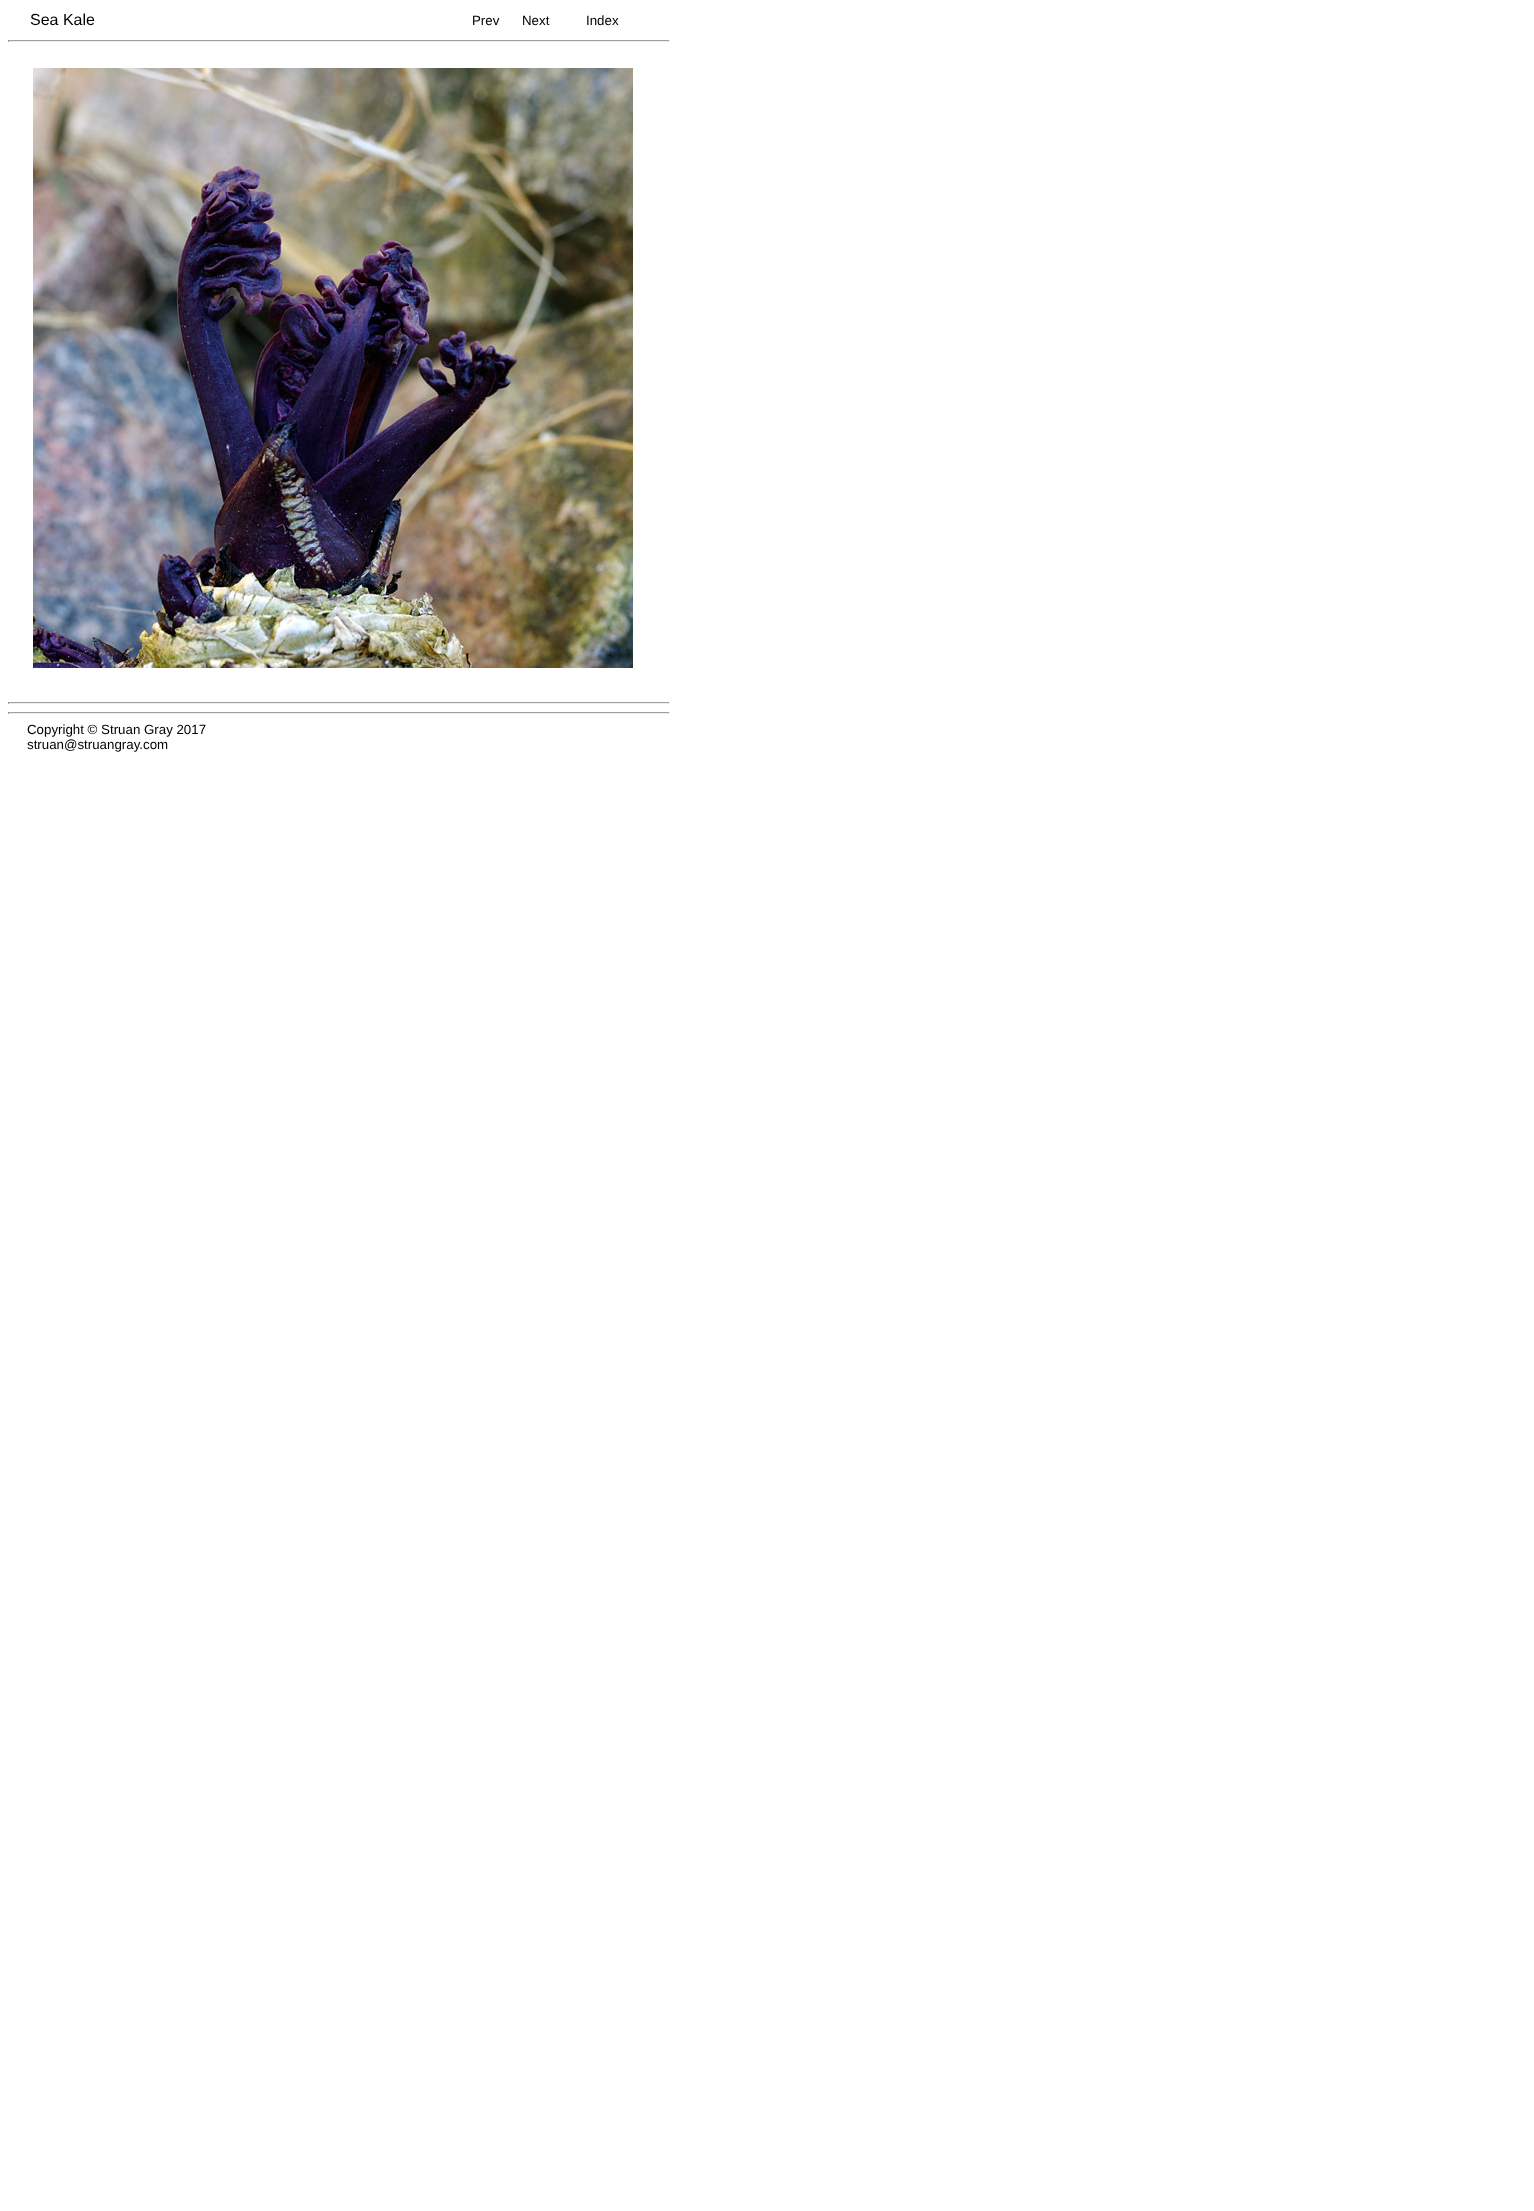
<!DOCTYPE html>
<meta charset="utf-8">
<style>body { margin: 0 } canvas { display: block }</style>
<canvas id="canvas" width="1534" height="2211"></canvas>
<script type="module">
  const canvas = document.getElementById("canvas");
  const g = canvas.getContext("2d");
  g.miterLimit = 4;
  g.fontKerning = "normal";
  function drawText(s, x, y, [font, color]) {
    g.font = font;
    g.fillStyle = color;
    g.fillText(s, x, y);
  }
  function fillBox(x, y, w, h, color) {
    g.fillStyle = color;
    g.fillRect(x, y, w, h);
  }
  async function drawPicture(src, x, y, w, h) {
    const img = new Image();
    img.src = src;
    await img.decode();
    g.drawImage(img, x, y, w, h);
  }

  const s1 = ["16px Liberation Sans", "#000000"];
  const s2 = ["13.3px Liberation Sans", "#000000"];

  fillBox(0, 0, 1534, 2211, "#FFFFFF");
  drawText("Sea Kale", 30, 25, s1);
  drawText("Prev", 472, 25, s2);
  drawText("Next", 522, 25, s2);
  drawText("Index", 586, 25, s2);
  fillBox(8, 40, 662, 1, "#9F9F9F");
  fillBox(669, 40, 1, 2, "#EEEEEE");
  fillBox(8, 41, 662, 1, "#EEEEEE");
  fillBox(8, 40, 1, 2, "#9F9F9F");
  await drawPicture("pic1.png", 33, 68, 600, 600);
  fillBox(8, 702, 662, 1, "#9F9F9F");
  fillBox(669, 702, 1, 2, "#EEEEEE");
  fillBox(8, 703, 662, 1, "#EEEEEE");
  fillBox(8, 702, 1, 2, "#9F9F9F");
  fillBox(8, 712, 662, 1, "#9F9F9F");
  fillBox(669, 712, 1, 2, "#EEEEEE");
  fillBox(8, 713, 662, 1, "#EEEEEE");
  fillBox(8, 712, 1, 2, "#9F9F9F");
  drawText("Copyright © Struan Gray 2017", 27, 734, s2);
  drawText("struan@struangray.com", 27, 749, s2);
</script>
